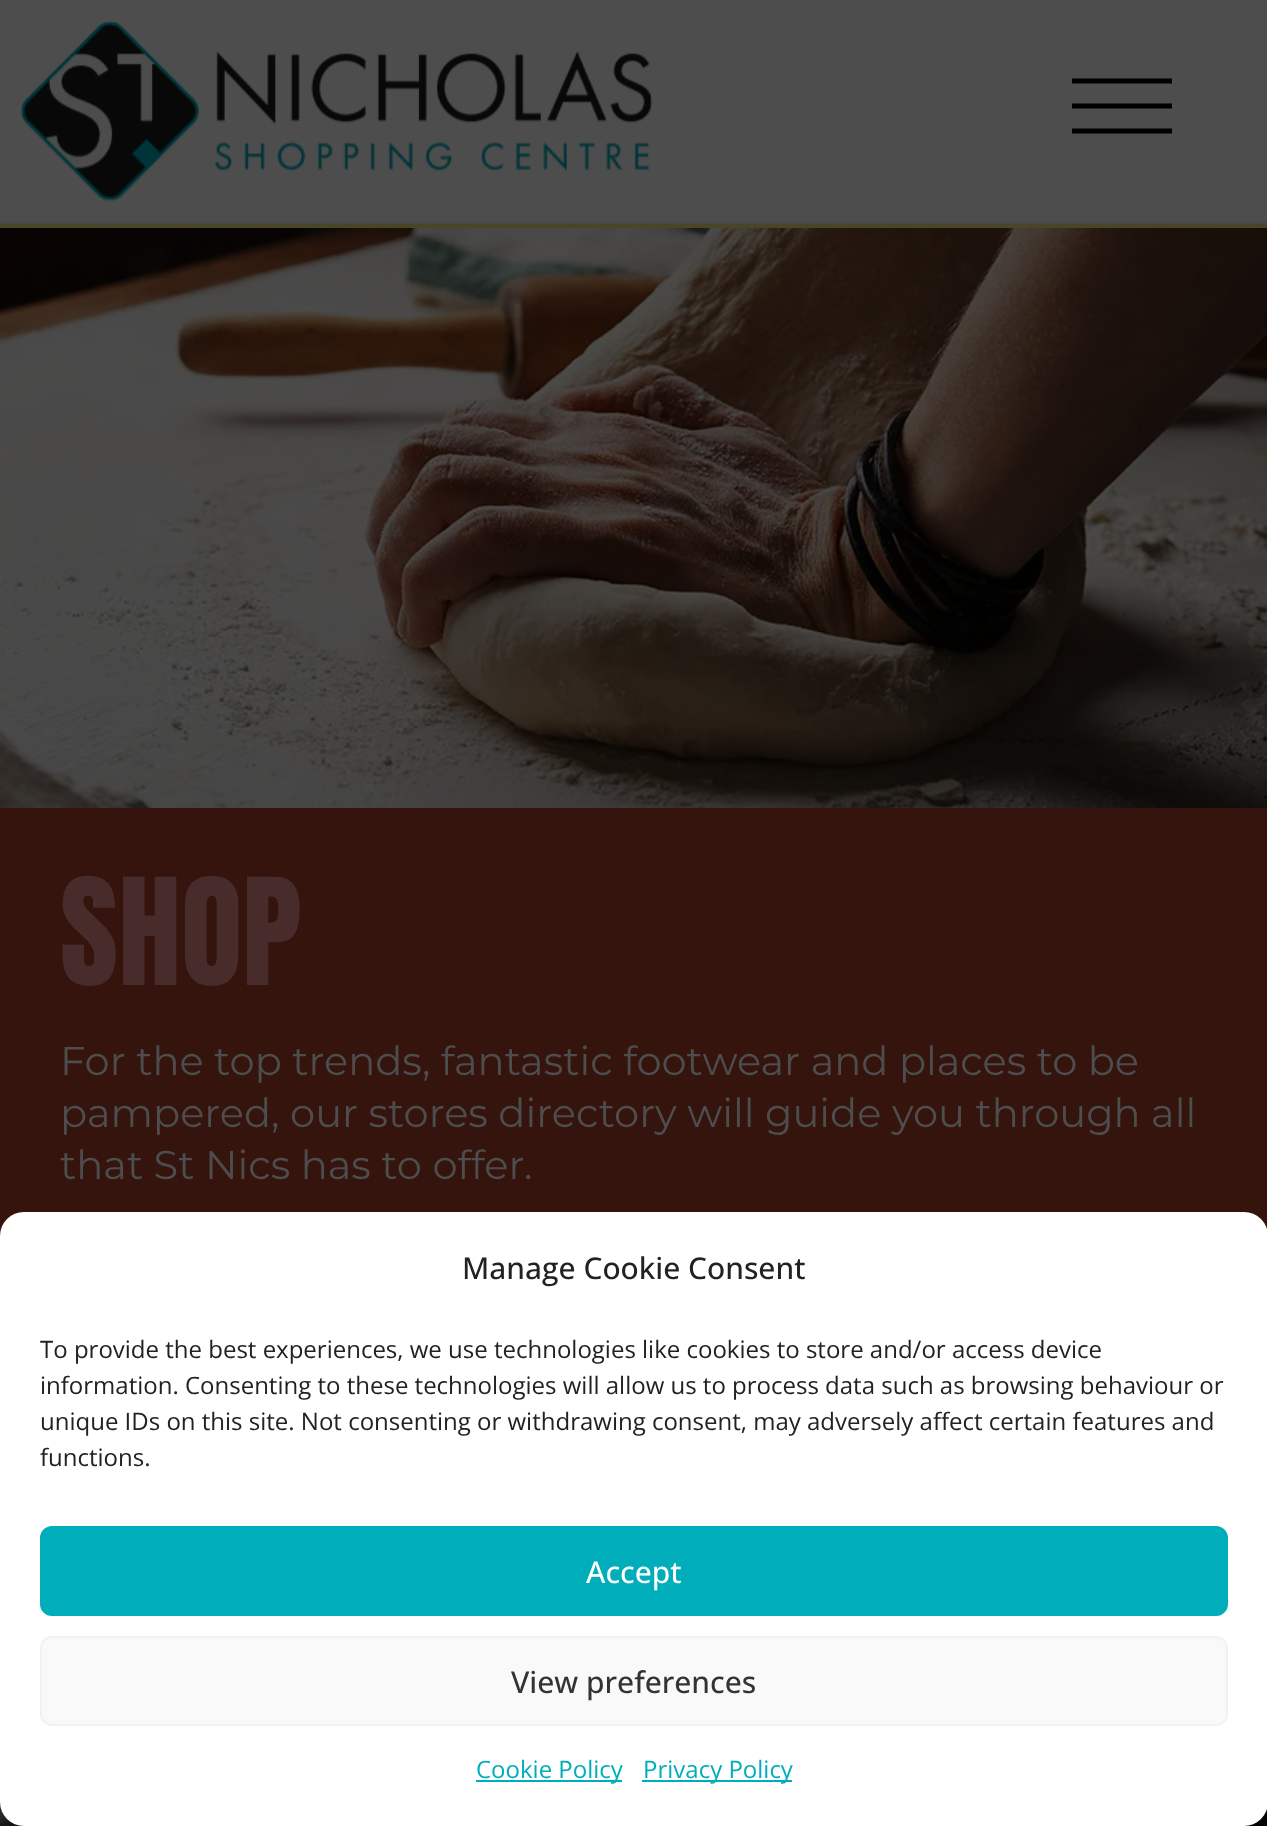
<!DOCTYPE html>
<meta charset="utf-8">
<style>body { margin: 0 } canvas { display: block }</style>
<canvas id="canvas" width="1267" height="1826"></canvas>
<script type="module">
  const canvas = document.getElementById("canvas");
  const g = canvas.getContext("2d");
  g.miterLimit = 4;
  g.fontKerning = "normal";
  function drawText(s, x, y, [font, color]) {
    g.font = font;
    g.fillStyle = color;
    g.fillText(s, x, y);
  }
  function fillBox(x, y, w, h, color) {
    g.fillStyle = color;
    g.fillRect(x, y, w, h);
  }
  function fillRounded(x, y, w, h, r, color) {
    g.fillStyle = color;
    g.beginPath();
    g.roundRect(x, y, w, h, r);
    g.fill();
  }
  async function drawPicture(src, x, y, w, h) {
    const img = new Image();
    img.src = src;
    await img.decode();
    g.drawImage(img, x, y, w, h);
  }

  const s1 = ["126px Anton", "#482B2B"];
  const s2 = ["40px Montserrat", "#4D4D4D"];
  const s3 = ["500 30px Open Sans", "#222222"];
  const s4 = ["24px Open Sans", "#222222"];
  const s5 = ["500 30px Open Sans", "#FFFFFF"];
  const s6 = ["500 30px Open Sans", "#333333"];
  const s7 = ["24px Open Sans", "#00ADBA"];

  fillBox(0, 0, 1267, 1826, "#494527");
  fillBox(0, 0, 1267, 222, "#4D4D4D");
  fillBox(0, 222, 1267, 2, "#484848");
  await drawPicture("pic1.png", 21, 21, 632, 181);
  g.beginPath();
  g.moveTo(1072, 81);
  g.lineTo(1172, 81);
  g.strokeStyle = "#000000";
  g.lineWidth = 5;
  g.stroke();
  g.beginPath();
  g.moveTo(1072, 106);
  g.lineTo(1172, 106);
  g.stroke();
  g.beginPath();
  g.moveTo(1072, 131);
  g.lineTo(1172, 131);
  g.stroke();
  await drawPicture("pic2.png", 0, 228, 1267, 580);
  fillBox(0, 808, 1267, 428, "#34140D");
  drawText("SHOP", 60, 985, s1);
  drawText("For the top trends, fantastic footwear and places to be", 60, 1075, s2);
  drawText("pampered, our stores directory will guide you through all", 60, 1127, s2);
  drawText("that St Nics has to offer.", 60, 1179, s2);
  await drawPicture("pic3.png", 0, 1802, 1267, 24);
  fillRounded(0, 1212, 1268, 614, 24, "#FFFFFF");
  drawText("Manage Cookie Consent", 462, 1279, s3);
  drawText("To provide the best experiences, we use technologies like cookies to store and/or access device", 40, 1358, s4);
  drawText("information. Consenting to these technologies will allow us to process data such as browsing behaviour or", 40, 1394, s4);
  drawText("unique IDs on this site. Not consenting or withdrawing consent, may adversely affect certain features and", 40, 1430, s4);
  drawText("functions.", 40, 1466, s4);
  g.fillStyle = "#00ADBA";
  g.beginPath();
  g.roundRect(41, 1527, 1186, 88, 11);
  g.fill();
  g.strokeStyle = "#00ADBA";
  g.lineWidth = 2;
  g.stroke();
  drawText("Accept", 586, 1583, s5);
  g.fillStyle = "#F9F9F9";
  g.beginPath();
  g.roundRect(41, 1637, 1186, 88, 11);
  g.fill();
  g.strokeStyle = "#F2F2F2";
  g.stroke();
  drawText("View preferences", 511, 1693, s6);
  fillBox(476, 1780, 146, 2, "#00ADBA");
  drawText("Cookie Policy", 476, 1778, s7);
  fillBox(642, 1780, 150, 2, "#00ADBA");
  drawText("Privacy Policy", 643, 1778, s7);
</script>
